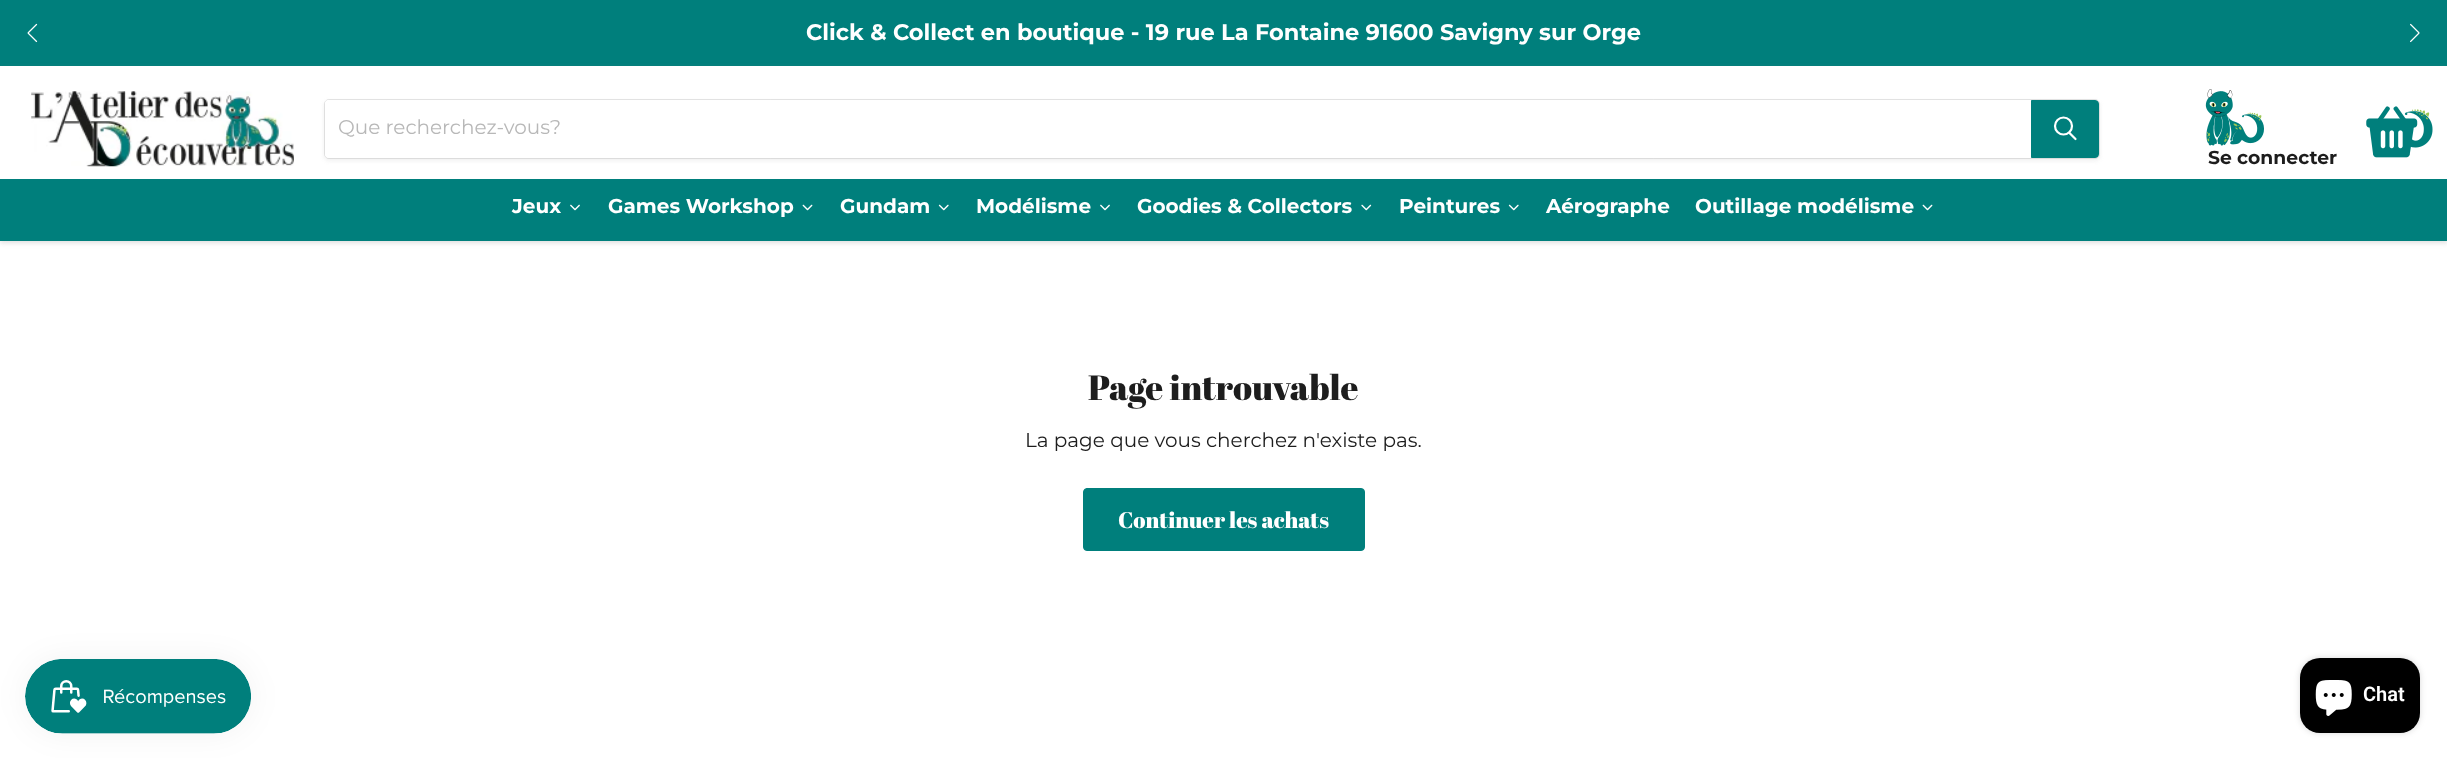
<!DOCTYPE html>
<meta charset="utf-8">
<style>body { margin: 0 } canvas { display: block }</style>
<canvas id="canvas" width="2447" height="758"></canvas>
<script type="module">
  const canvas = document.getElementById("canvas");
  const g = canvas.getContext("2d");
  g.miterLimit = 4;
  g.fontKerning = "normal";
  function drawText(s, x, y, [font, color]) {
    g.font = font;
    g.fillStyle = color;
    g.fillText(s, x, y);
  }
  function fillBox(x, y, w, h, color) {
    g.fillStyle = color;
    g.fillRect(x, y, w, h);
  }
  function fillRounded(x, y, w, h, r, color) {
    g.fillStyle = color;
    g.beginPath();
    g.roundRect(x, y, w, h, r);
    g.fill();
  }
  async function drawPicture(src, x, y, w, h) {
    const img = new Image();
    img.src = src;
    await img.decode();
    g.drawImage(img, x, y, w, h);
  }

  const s1 = ["bold 22.5px Montserrat", "#FFFFFF"];
  const s2 = ["100 20px Montserrat", "#B8B8B8"];
  const s3 = ["bold 18.75px Montserrat", "#1D1D1D"];
  const s4 = ["bold 20px Montserrat", "#FFFFFF"];
  const s5 = ["35px Abril Fatface", "#1D1D1D"];
  const s6 = ["100 20px Montserrat", "#1D1D1D"];
  const s7 = ["22.5px Abril Fatface", "#FFFFFF"];
  const s8 = ["600 20px Roboto", "#FFFFFF"];

  fillBox(0, 0, 2447, 758, "#FFFFFF");
  fillBox(0, 0, 2447, 66, "#007F7C");
  await drawPicture("pic1.png", 27, 23, 11, 20);
  drawText("Click & Collect en boutique - 19 rue La Fontaine 91600 Savigny sur Orge", 806, 40, s1);
  await drawPicture("pic2.png", 2410, 23, 10, 20);
  g.fillStyle = "rgba(128, 128, 128, 0.25)";
  g.filter = "blur(2.5px)";
  g.beginPath();
  g.rect(0, 68, 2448, 175);
  g.fill();
  g.filter = "none";
  fillBox(0, 66, 2447, 113, "#FFFFFF");
  await drawPicture("pic3.png", 31, 91, 263, 76);
  g.fillStyle = "rgba(128, 128, 128, 0.11)";
  g.filter = "blur(2px)";
  g.beginPath();
  g.roundRect(324, 101, 1776, 60, 5);
  g.fill();
  g.filter = "none";
  g.beginPath();
  g.roundRect(324.5, 99.5, 1775, 59, 4.5);
  g.strokeStyle = "rgba(128, 128, 128, 0.2)";
  g.stroke();
  g.fillStyle = "#FFFFFF";
  g.beginPath();
  g.roundRect(325, 100, 1706, 58, [4, 0, 0, 4]);
  g.fill();
  drawText("Que recherchez-vous?", 338, 134, s2);
  g.fillStyle = "#007F7C";
  g.beginPath();
  g.roundRect(2031.5, 100.5, 67, 57, [0, 3.5, 3.5, 0]);
  g.fill();
  g.strokeStyle = "#007F7C";
  g.stroke();
  g.beginPath();
  g.moveTo(2075.5, 139);
  g.lineTo(2069.5, 133);
  g.strokeStyle = "#FFFFFF";
  g.lineWidth = 2.2;
  g.lineCap = "round";
  g.stroke();
  g.beginPath();
  g.arc(2063.5, 126, 8.5, 0, Math.PI * 2);
  g.stroke();
  await drawPicture("pic4.png", 2205, 89, 59, 57);
  drawText("Se connecter", 2208, 164, s3);
  await drawPicture("pic5.png", 2366, 106, 67, 52);
  fillBox(0, 179, 2447, 62, "#007F7C");
  drawText("Jeux", 512, 213, s4);
  await drawPicture("pic6.png", 570, 204, 10, 7);
  drawText("Games Workshop", 608, 213, s4);
  await drawPicture("pic7.png", 802, 204, 11, 7);
  drawText("Gundam", 840, 213, s4);
  await drawPicture("pic8.png", 938, 204, 11, 7);
  drawText("Modélisme", 976, 213, s4);
  await drawPicture("pic6.png", 1100, 204, 10, 7);
  drawText("Goodies & Collectors", 1137, 213, s4);
  await drawPicture("pic9.png", 1361, 204, 11, 7);
  drawText("Peintures", 1399, 213, s4);
  await drawPicture("pic8.png", 1508, 204, 11, 7);
  drawText("Aérographe", 1546, 213, s4);
  drawText("Outillage modélisme", 1695, 213, s4);
  await drawPicture("pic7.png", 1922, 204, 11, 7);
  drawText("Page introuvable", 1088, 400, s5);
  drawText("La page que vous cherchez n'existe pas.", 1025, 447, s6);
  g.fillStyle = "#007F7C";
  g.beginPath();
  g.roundRect(1083.5, 488.5, 281, 62, 3.5);
  g.fill();
  g.strokeStyle = "#007F7C";
  g.lineWidth = 1;
  g.stroke();
  drawText("Continuer les achats", 1118, 528, s7);
  g.fillStyle = "rgba(0, 0, 0, 0.05)";
  g.filter = "blur(15.5px)";
  g.beginPath();
  g.roundRect(25, 659, 226, 75, 37.5);
  g.fill();
  g.filter = "none";
  await drawPicture("pic10.png", 25, 659, 226, 75);
  g.fillStyle = "rgba(0, 0, 0, 0.15)";
  g.filter = "blur(3px)";
  g.beginPath();
  g.roundRect(2300, 658, 120, 75, 20);
  g.fill();
  g.filter = "none";
  fillRounded(2300, 658, 120, 75, 20, "#000000");
  await drawPicture("pic11.png", 2315, 680, 37, 36);
  drawText("Chat", 2363, 701, s8);
</script>
